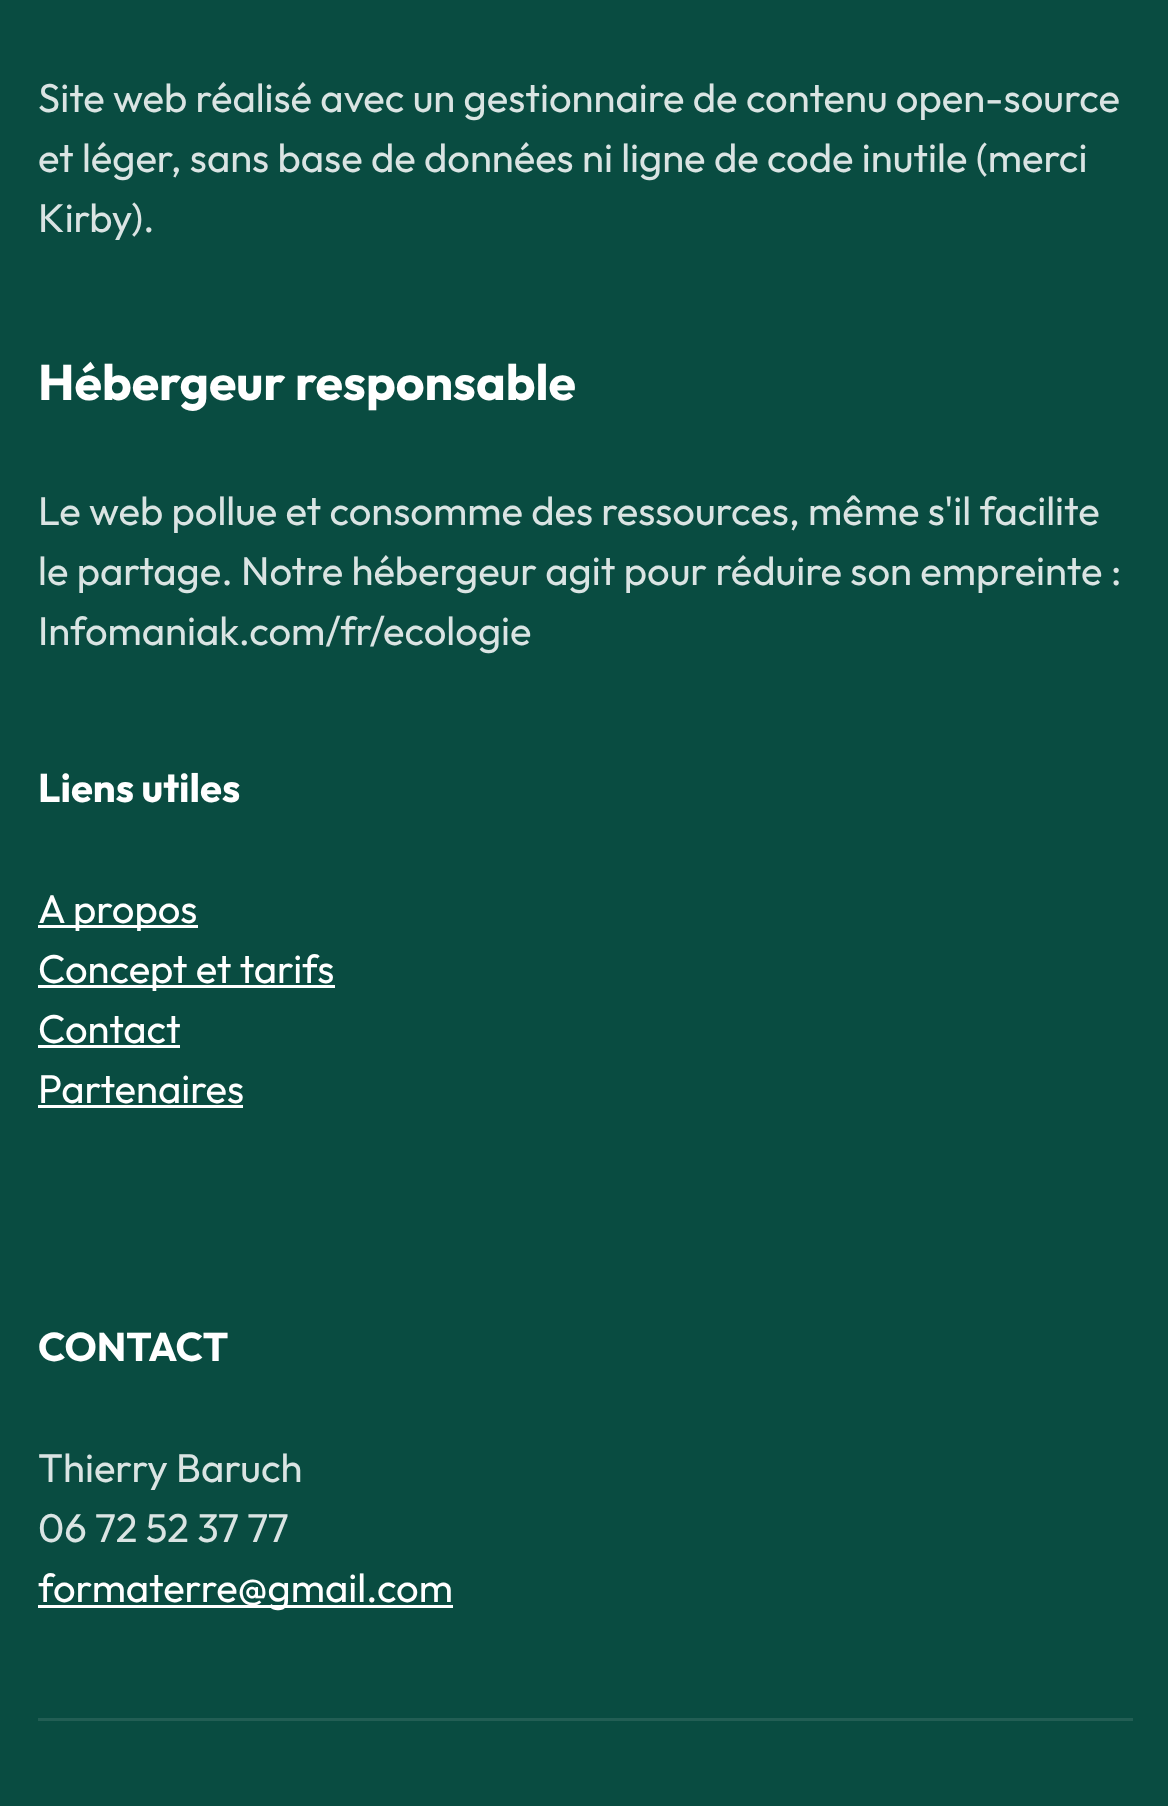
<!DOCTYPE html>
<meta charset="utf-8">
<style>body { margin: 0 } canvas { display: block }</style>
<canvas id="canvas" width="1168" height="1806"></canvas>
<script type="module">
  const canvas = document.getElementById("canvas");
  const g = canvas.getContext("2d");
  g.miterLimit = 4;
  g.fontKerning = "normal";
  function drawText(s, x, y, [font, color]) {
    g.font = font;
    g.fillStyle = color;
    g.fillText(s, x, y);
  }
  function fillBox(x, y, w, h, color) {
    g.fillStyle = color;
    g.fillRect(x, y, w, h);
  }

  const s1 = ["40px Outfit", "#DAE4E3"];
  const s2 = ["bold 50px Outfit", "#FFFFFF"];
  const s3 = ["bold 40px Outfit", "#FFFFFF"];
  const s4 = ["40px Outfit", "#FFFFFF"];

  fillBox(0, 0, 1168, 1806, "#094C41");
  drawText("Site web réalisé avec un gestionnaire de contenu open-source", 38, 112, s1);
  drawText("et léger, sans base de données ni ligne de code inutile (merci", 38, 172, s1);
  drawText("Kirby).", 38, 232, s1);
  drawText("Hébergeur responsable", 38, 400, s2);
  drawText("Le web pollue et consomme des ressources, même s'il facilite", 38, 525, s1);
  drawText("le partage. Notre hébergeur agit pour réduire son empreinte :", 38, 585, s1);
  drawText("Infomaniak.com/fr/ecologie", 38, 645, s1);
  drawText("Liens utiles", 38, 802, s3);
  fillBox(38, 925, 160, 3, "#FFFFFF");
  drawText("A propos", 38, 923, s4);
  fillBox(38, 985, 297, 3, "#FFFFFF");
  drawText("Concept et tarifs", 38, 983, s4);
  drawText("Contact", 38, 1043, s4);
  fillBox(38, 1045, 142, 3, "#FFFFFF");
  drawText("Partenaires", 38, 1103, s4);
  fillBox(38, 1105, 205, 3, "#FFFFFF");
  drawText("CONTACT", 38, 1361, s3);
  drawText("Thierry Baruch", 38, 1482, s1);
  drawText("06 72 52 37 77", 38, 1542, s1);
  fillBox(38, 1605, 415, 3, "#FFFFFF");
  drawText("formaterre@gmail.com", 38, 1602, s4);
  fillBox(38, 1718, 1095, 3, "#225E54");
</script>
